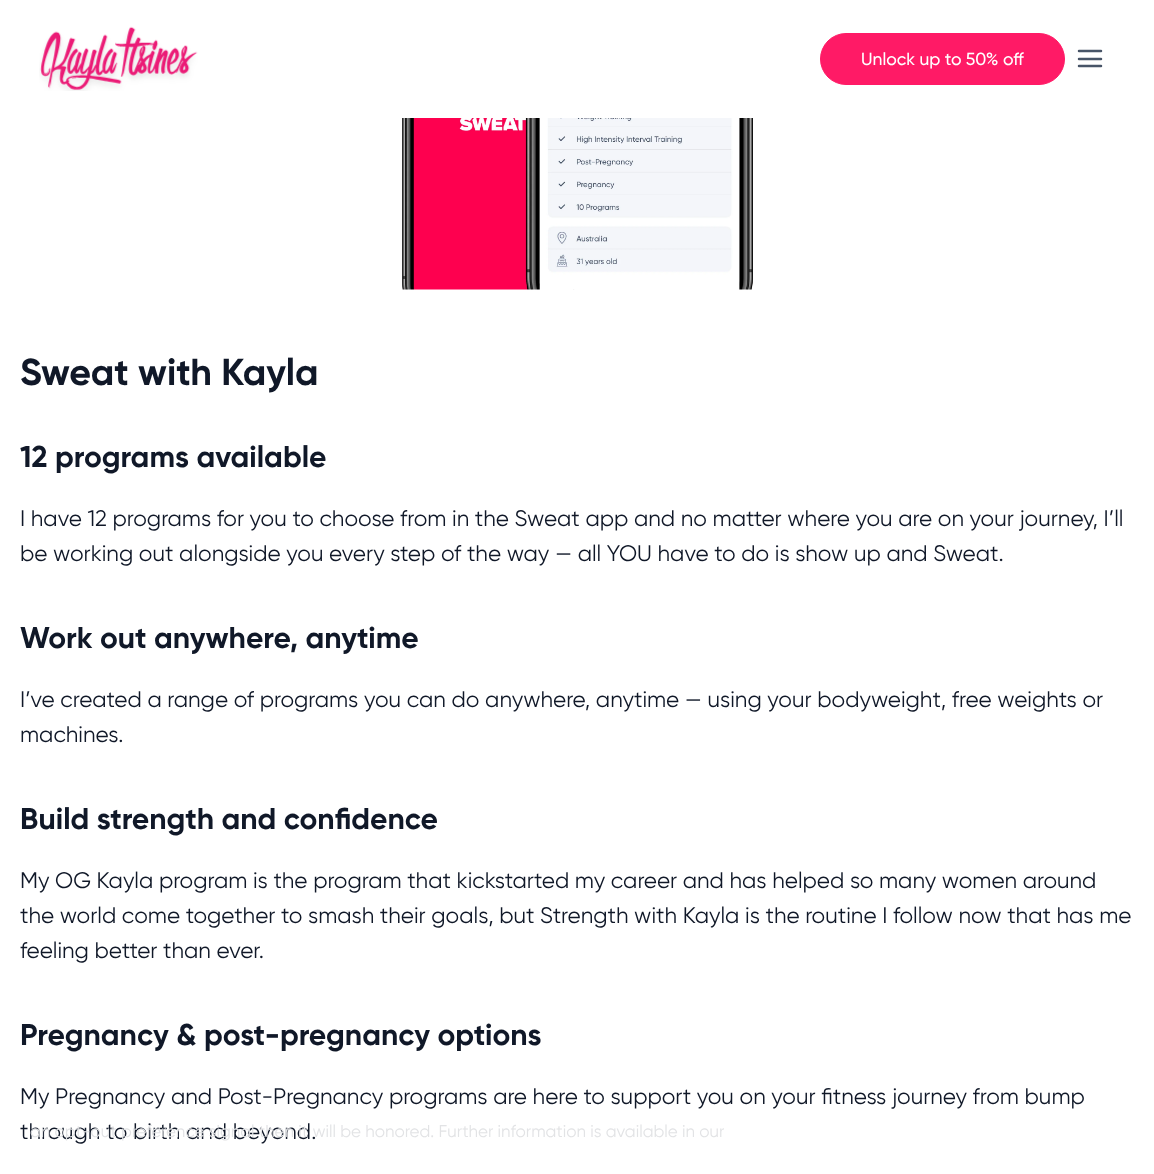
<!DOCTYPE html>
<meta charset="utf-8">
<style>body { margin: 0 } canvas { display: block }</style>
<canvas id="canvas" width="1154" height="1174"></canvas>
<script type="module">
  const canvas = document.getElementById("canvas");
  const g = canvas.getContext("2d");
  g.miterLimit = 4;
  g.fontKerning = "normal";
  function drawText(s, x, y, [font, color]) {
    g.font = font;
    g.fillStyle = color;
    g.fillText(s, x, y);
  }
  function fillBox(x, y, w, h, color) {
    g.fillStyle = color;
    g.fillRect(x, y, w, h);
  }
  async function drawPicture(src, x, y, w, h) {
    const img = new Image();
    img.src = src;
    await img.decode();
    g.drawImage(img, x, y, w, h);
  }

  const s1 = ["500 17.5px Gilroy", "#FFFFFF"];
  const s2 = ["bold 37.5px Gilroy", "#101828"];
  const s3 = ["bold 30px Gilroy", "#101828"];
  const s4 = ["22.5px Gilroy", "#101828"];
  const s5 = ["17px Gilroy", "#E2E3E5"];

  fillBox(0, 0, 1154, 1174, "#FFFFFF");
  await drawPicture("pic1.png", 39, 26, 159, 65);
  g.fillStyle = "#FF1A66";
  g.beginPath();
  g.roundRect(820.5, 33.5, 244, 51, 25.5);
  g.fill();
  g.strokeStyle = "#FF1A66";
  g.stroke();
  drawText("Unlock up to 50% off", 861, 65, s1);
  g.beginPath();
  g.moveTo(1079, 59);
  g.lineTo(1101, 59);
  g.moveTo(1079, 51);
  g.lineTo(1101, 51);
  g.moveTo(1079, 66);
  g.lineTo(1101, 66);
  g.strokeStyle = "#475467";
  g.lineWidth = 2.5;
  g.lineCap = "round";
  g.lineJoin = "round";
  g.stroke();
  await drawPicture("pic2.png", 402, 118, 351, 172);
  drawText("Sweat with Kayla", 20, 385, s2);
  drawText("12 programs available", 20, 467, s3);
  drawText("I have 12 programs for you to choose from in the Sweat app and no matter where you are on your journey, I’ll", 20, 526, s4);
  drawText("be working out alongside you every step of the way — all YOU have to do is show up and Sweat.", 20, 561, s4);
  drawText("Work out anywhere, anytime", 20, 648, s3);
  drawText("I’ve created a range of programs you can do anywhere, anytime — using your bodyweight, free weights or", 20, 707, s4);
  drawText("machines.", 20, 742, s4);
  drawText("Build strength and confidence", 20, 829, s3);
  drawText("My OG Kayla program is the program that kickstarted my career and has helped so many women around", 20, 888, s4);
  drawText("the world come together to smash their goals, but Strength with Kayla is the routine I follow now that has me", 20, 923, s4);
  drawText("feeling better than ever.", 20, 958, s4);
  drawText("Pregnancy & post-pregnancy options", 20, 1045, s3);
  drawText("My Pregnancy and Post-Pregnancy programs are here to support you on your fitness journey from bump", 20, 1104, s4);
  drawText("through to birth and beyond.", 20, 1139, s4);
  drawText("an opt-out preference signal then it will be honored. Further information is available in our", 30, 1137, s5);
</script>
